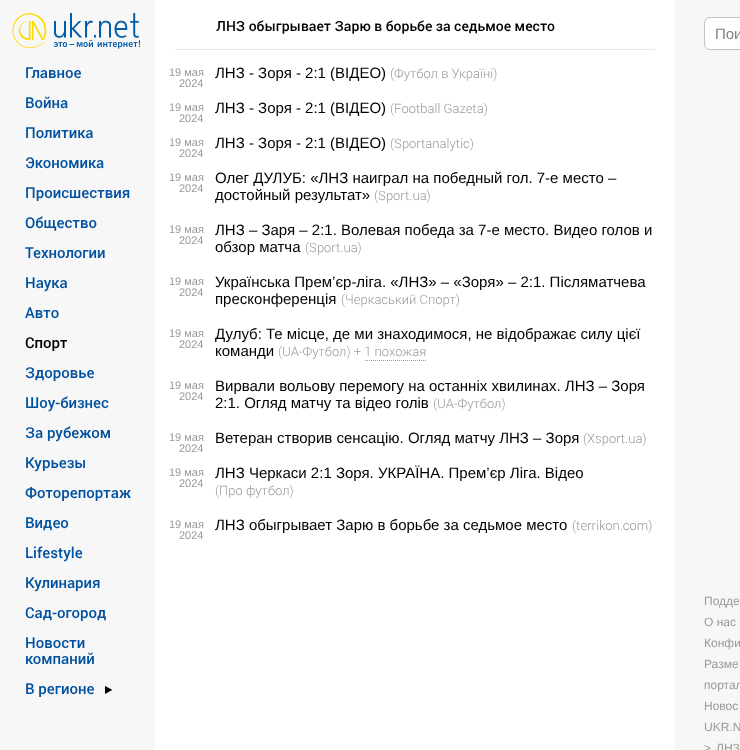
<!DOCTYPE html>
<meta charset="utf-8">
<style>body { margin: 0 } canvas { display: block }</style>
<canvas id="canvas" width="740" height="750"></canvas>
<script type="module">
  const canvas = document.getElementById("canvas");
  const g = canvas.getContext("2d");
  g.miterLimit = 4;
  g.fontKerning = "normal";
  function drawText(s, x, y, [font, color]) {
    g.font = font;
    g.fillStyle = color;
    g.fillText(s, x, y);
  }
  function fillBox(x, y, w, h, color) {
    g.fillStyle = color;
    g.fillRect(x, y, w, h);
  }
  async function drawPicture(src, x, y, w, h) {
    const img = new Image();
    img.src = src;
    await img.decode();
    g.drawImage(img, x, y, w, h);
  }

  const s1 = ["500 15px Roboto", "#00519F"];
  const s2 = ["500 15px Roboto", "#000000"];
  const s3 = ["500 14px Roboto", "#000000"];
  const s4 = ["11px Liberation Sans", "#999999"];
  const s5 = ["15px Liberation Sans", "#000000"];
  const s6 = ["300 13px Roboto", "#999999"];
  const s7 = ["15px Liberation Sans", "#808080"];
  const s8 = ["12px Liberation Sans", "#999999"];

  fillBox(0, 0, 740, 750, "#F7F7F7");
  await drawPicture("pic1.png", 12, 13, 129, 36);
  drawText("Главное", 25, 78, s1);
  drawText("Война", 25, 108, s1);
  drawText("Политика", 25, 138, s1);
  drawText("Экономика", 25, 168, s1);
  drawText("Происшествия", 25, 198, s1);
  drawText("Общество", 25, 228, s1);
  drawText("Технологии", 25, 258, s1);
  drawText("Наука", 25, 288, s1);
  drawText("Авто", 25, 318, s1);
  drawText("Спорт", 25, 348, s2);
  drawText("Здоровье", 25, 378, s1);
  drawText("Шоу-бизнес", 25, 408, s1);
  drawText("За рубежом", 25, 438, s1);
  drawText("Курьезы", 25, 468, s1);
  drawText("Фоторепортаж", 25, 498, s1);
  drawText("Видео", 25, 528, s1);
  drawText("Lifestyle", 25, 558, s1);
  drawText("Кулинария", 25, 588, s1);
  drawText("Сад-огород", 25, 618, s1);
  drawText("Новости", 25, 648, s1);
  drawText("компаний", 25, 664, s1);
  drawText("В регионе", 25, 694, s1);
  await drawPicture("pic2.png", 105, 686, 7, 8);
  fillBox(155, 0, 520, 750, "#FFFFFF");
  fillBox(175, 49, 480, 1, "#E9E9E9");
  drawText("ЛНЗ обыгрывает Зарю в борьбе за седьмое место", 216, 31, s3);
  drawText("19 мая", 169, 76, s4);
  drawText("2024", 179, 87, s4);
  drawText("ЛНЗ - Зоря - 2:1 (ВІДЕО)", 215, 78, s5);
  drawText("(Футбол в Україні)", 390, 78, s6);
  drawText("19 мая", 169, 111, s4);
  drawText("2024", 179, 122, s4);
  drawText("ЛНЗ - Зоря - 2:1 (ВІДЕО)", 215, 113, s5);
  drawText("(Football Gazeta)", 390, 113, s6);
  drawText("19 мая", 169, 146, s4);
  drawText("2024", 179, 157, s4);
  drawText("ЛНЗ - Зоря - 2:1 (ВІДЕО)", 215, 148, s5);
  drawText("(Sportanalytic)", 390, 148, s6);
  drawText("19 мая", 169, 181, s4);
  drawText("2024", 179, 192, s4);
  drawText("Олег ДУЛУБ: «ЛНЗ наиграл на победный гол. 7-е место –", 215, 183, s5);
  drawText("достойный результат»", 215, 200, s5);
  drawText("(Sport.ua)", 374, 200, s6);
  drawText("19 мая", 169, 233, s4);
  drawText("2024", 179, 244, s4);
  drawText("ЛНЗ – Заря – 2:1. Волевая победа за 7-е место. Видео голов и", 215, 235, s5);
  drawText("обзор матча", 215, 252, s5);
  drawText("(Sport.ua)", 305, 252, s6);
  drawText("19 мая", 169, 285, s4);
  drawText("2024", 179, 296, s4);
  drawText("Українська Прем’єр-ліга. «ЛНЗ» – «Зоря» – 2:1. Післяматчева", 215, 287, s5);
  drawText("пресконференція", 215, 304, s5);
  drawText("(Черкаський Спорт)", 341, 304, s6);
  drawText("19 мая", 169, 337, s4);
  drawText("2024", 179, 348, s4);
  drawText("Дулуб: Те місце, де ми знаходимося, не відображає силу цієї", 215, 339, s5);
  drawText("команди", 215, 356, s5);
  drawText("(UA-Футбол) + 1 похожая", 278, 356, s6);
  g.beginPath();
  g.moveTo(365, 360.5);
  g.lineTo(427, 360.5);
  g.strokeStyle = "#999999";
  g.setLineDash([1, 1]);
  g.stroke();
  drawText("19 мая", 169, 389, s4);
  drawText("2024", 179, 400, s4);
  drawText("Вирвали вольову перемогу на останніх хвилинах. ЛНЗ – Зоря", 215, 391, s5);
  drawText("2:1. Огляд матчу та відео голів", 215, 408, s5);
  drawText("(UA-Футбол)", 433, 408, s6);
  drawText("19 мая", 169, 441, s4);
  drawText("2024", 179, 452, s4);
  drawText("Ветеран створив сенсацію. Огляд матчу ЛНЗ – Зоря", 215, 443, s5);
  drawText("(Xsport.ua)", 583, 443, s6);
  drawText("19 мая", 169, 476, s4);
  drawText("2024", 179, 487, s4);
  drawText("ЛНЗ Черкаси 2:1 Зоря. УКРАЇНА. Прем’єр Ліга. Відео", 215, 478, s5);
  drawText("(Про футбол)", 215, 495, s6);
  drawText("19 мая", 169, 528, s4);
  drawText("2024", 179, 539, s4);
  drawText("ЛНЗ обыгрывает Зарю в борьбе за седьмое место", 215, 530, s5);
  drawText("(terrikon.com)", 572, 530, s6);
  g.fillStyle = "#FFFFFF";
  g.beginPath();
  g.roundRect(704.5, 17.5, 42, 32, 5.5);
  g.fill();
  g.strokeStyle = "#C1C1C1";
  g.setLineDash([]);
  g.stroke();
  drawText("Пои", 715, 39, s7);
  drawText("Подде", 704, 605, s8);
  drawText("О нас", 704, 626, s8);
  drawText("Конфи", 704, 647, s8);
  drawText("Разме", 704, 668, s8);
  drawText("портал", 704, 689, s8);
  drawText("Новос", 704, 710, s8);
  drawText("UKR.N", 704, 731, s8);
  drawText(">", 704, 752, s8);
  drawText("ЛНЗ", 716, 752, s8);
</script>
